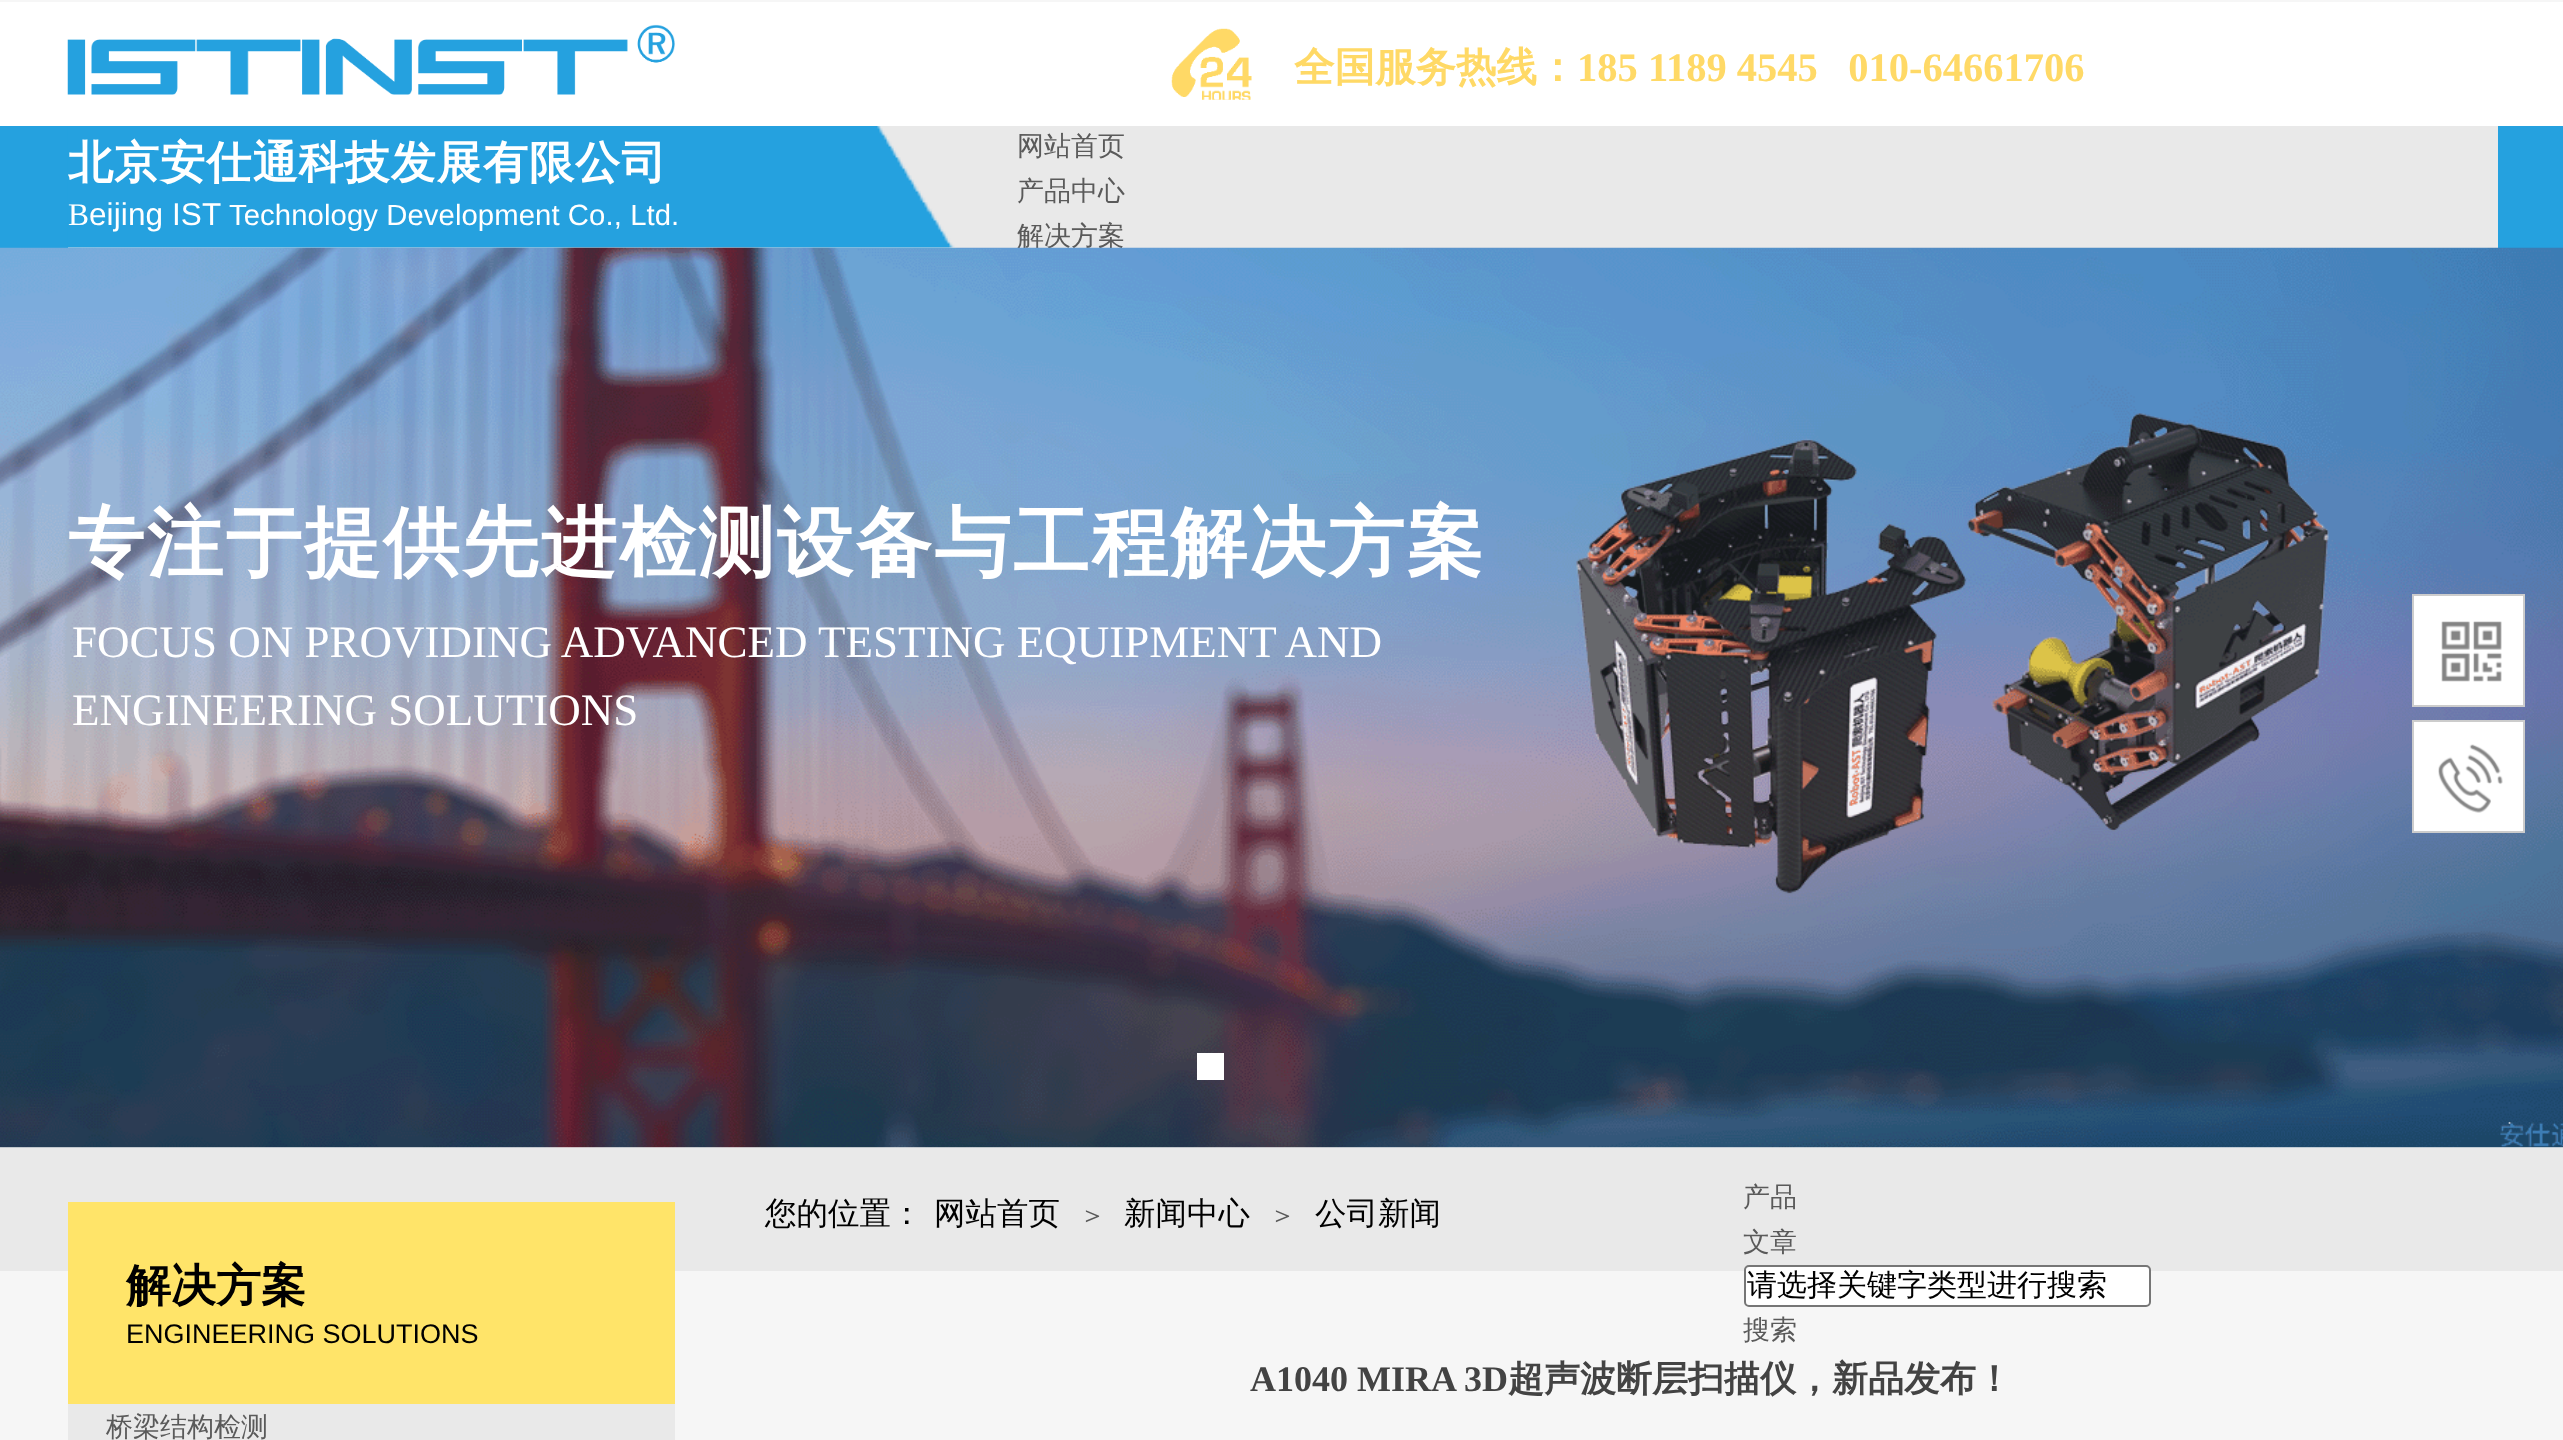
<!DOCTYPE html>
<meta charset="utf-8">
<style>body { margin: 0 } canvas { display: block }</style>
<canvas id="canvas" width="2563" height="1440"></canvas>
<script type="module">
  const canvas = document.getElementById("canvas");
  const g = canvas.getContext("2d");
  g.miterLimit = 4;
  g.fontKerning = "normal";
  function drawText(s, x, y, [font, color]) {
    g.font = font;
    g.fillStyle = color;
    g.fillText(s, x, y);
  }
  function fillBox(x, y, w, h, color) {
    g.fillStyle = color;
    g.fillRect(x, y, w, h);
  }
  async function drawPicture(src, x, y, w, h) {
    const img = new Image();
    img.src = src;
    await img.decode();
    g.drawImage(img, x, y, w, h);
  }

  const s1 = ["bold 40.5px WenQuanYi Zen Hei", "#FFD966"];
  const s2 = ["bold 40.5px Liberation Serif", "#FFD966"];
  const s3 = ["bold 45px WenQuanYi Zen Hei", "#FFFFFF"];
  const s4 = ["31.5px Liberation Serif", "#FFFFFF"];
  const s5 = ["31.5px Liberation Sans", "#FFFFFF"];
  const s6 = ["29.25px Liberation Sans", "#FFFFFF"];
  const s7 = ["500 27px WenQuanYi Zen Hei", "#5A5A5A"];
  const s8 = ["bold 76.5px WenQuanYi Zen Hei", "#FFFFFF"];
  const s9 = ["45px Liberation Serif", "#FFFFFF"];
  const s10 = ["500 31.5px WenQuanYi Zen Hei", "#000000"];
  const s11 = ["bold 45px WenQuanYi Zen Hei", "#000000"];
  const s12 = ["27px Liberation Sans", "#000000"];
  const s13 = ["500 30px WenQuanYi Zen Hei", "#000000"];
  const s14 = ["bold 36px Liberation Serif", "#434343"];
  const s15 = ["bold 36px WenQuanYi Zen Hei", "#434343"];

  fillBox(0, 0, 2563, 1440, "#F6F6F6");
  fillBox(0, 2, 2563, 124, "#FFFFFF");
  await drawPicture("pic1.png", 67, 24, 608, 71);
  await drawPicture("pic2.png", 1171, 28, 81, 72);
  drawText("全国服务热线：", 1294, 81, s1);
  drawText("185 1189 4545   010-64661706", 1577, 81, s2);
  fillBox(0, 126, 2563, 122, "#25A1DF");
  fillBox(68, 126, 2430, 122, "#E9E9E9");
  await drawPicture("pic3.png", 67, 126, 888, 122);
  g.letterSpacing = "1.1px";
  drawText("北京安仕通科技发展有限公司", 68, 178, s3);
  g.letterSpacing = "0.1px";
  drawText("B", 68, 225, s4);
  drawText("eijing IST", 89, 225, s5);
  drawText("Technology Development Co., Ltd.", 229, 225, s6);
  g.letterSpacing = "0px";
  drawText("网站首页", 1017, 155, s7);
  drawText("产品中心", 1017, 200, s7);
  drawText("解决方案", 1017, 245, s7);
  await drawPicture("pic4.png", 0, 247, 2563, 901);
  fillBox(1197, 1053, 27, 27, "#FFFFFF");
  g.letterSpacing = "2.25px";
  drawText("专注于提供先进检测设备与工程解决方案", 68, 569, s8);
  g.letterSpacing = "0px";
  drawText("FOCUS ON PROVIDING ADVANCED TESTING EQUIPMENT AND", 72, 657, s9);
  drawText("ENGINEERING SOLUTIONS", 72, 725, s9);
  fillBox(0, 1148, 2563, 123, "#E9E9E9");
  fillBox(68, 1202, 607, 202, "#FFE469");
  drawText("您的位置：", 765, 1224, s10);
  drawText("网站首页", 934, 1224, s10);
  drawText("＞", 1079, 1224, s7);
  drawText("新闻中心", 1124, 1224, s10);
  drawText("＞", 1269, 1224, s7);
  drawText("公司新闻", 1315, 1224, s10);
  drawText("解决方案", 126, 1301, s11);
  drawText("ENGINEERING SOLUTIONS", 126, 1343, s12);
  drawText("产品", 1743, 1206, s7);
  drawText("文章", 1743, 1251, s7);
  g.fillStyle = "#FFFFFF";
  g.beginPath();
  g.roundRect(1745, 1266, 405, 40, 4);
  g.fill();
  g.strokeStyle = "#767676";
  g.lineWidth = 2;
  g.stroke();
  drawText("请选择关键字类型进行搜索", 1747, 1295, s13);
  drawText("搜索", 1743, 1339, s7);
  drawText("A1040 MIRA 3D", 1250, 1391, s14);
  drawText("超声波断层扫描仪，新品发布！", 1508, 1391, s15);
  fillBox(68, 1404, 607, 36, "#E9E9E9");
  drawText("桥梁结构检测", 106, 1436, s7);
  g.fillStyle = "#FFFFFF";
  g.beginPath();
  g.rect(2413, 595, 111, 111);
  g.fill();
  g.strokeStyle = "#CCCCCC";
  g.stroke();
  await drawPicture("pic5.png", 2441, 621, 61, 61);
  g.beginPath();
  g.rect(2413, 721, 111, 111);
  g.fill();
  g.stroke();
  await drawPicture("pic6.png", 2438, 744, 65, 69);
</script>
